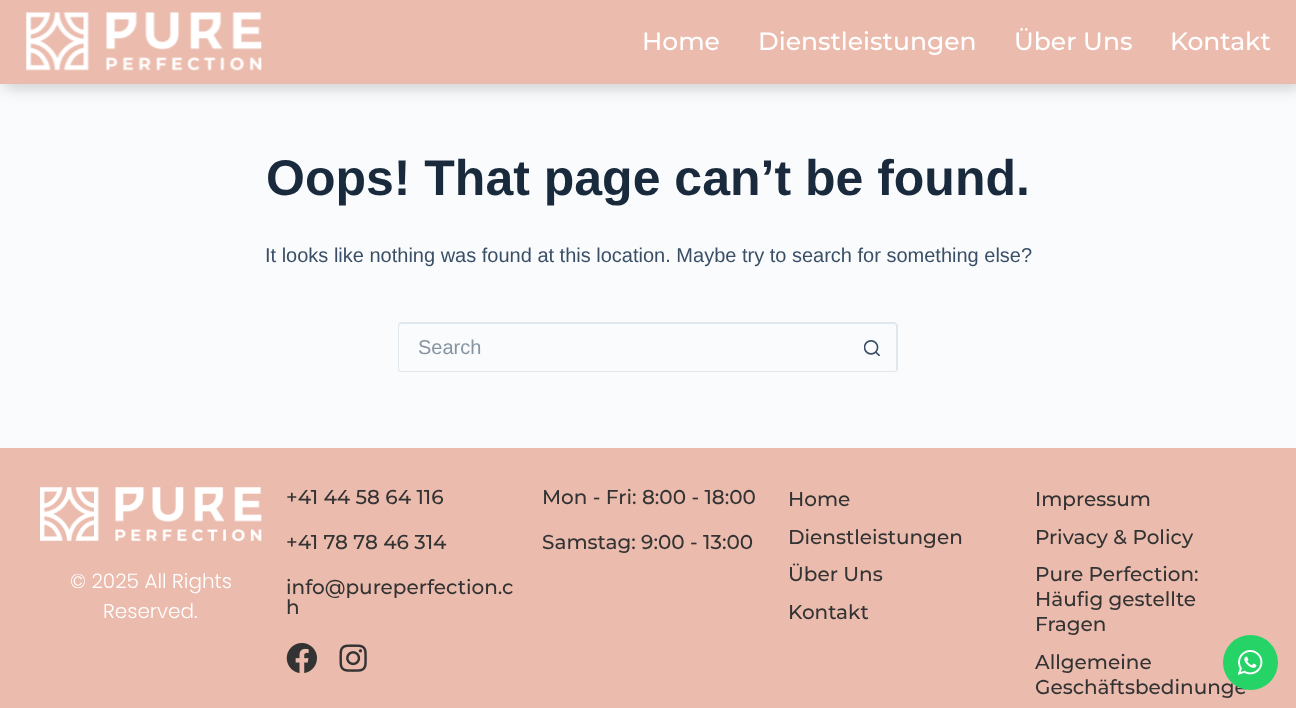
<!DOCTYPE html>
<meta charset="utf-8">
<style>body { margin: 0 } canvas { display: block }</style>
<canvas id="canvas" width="1296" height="708"></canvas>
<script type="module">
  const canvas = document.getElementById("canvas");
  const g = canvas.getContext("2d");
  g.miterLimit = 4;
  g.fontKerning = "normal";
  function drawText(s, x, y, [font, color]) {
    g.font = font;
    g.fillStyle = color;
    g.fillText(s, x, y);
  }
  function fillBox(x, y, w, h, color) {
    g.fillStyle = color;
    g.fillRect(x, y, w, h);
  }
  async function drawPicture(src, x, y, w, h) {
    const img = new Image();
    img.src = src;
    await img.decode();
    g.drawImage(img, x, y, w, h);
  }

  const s1 = ["500 25px Montserrat", "#FFFFFF"];
  const s2 = ["bold 50px Liberation Sans", "#192A3D"];
  const s3 = ["20px Liberation Sans", "#3A4F66"];
  const s4 = ["20px Liberation Sans", "#8794A2"];
  const s5 = ["300 20px Poppins", "#FFFFFF"];
  const s6 = ["500 20px Montserrat", "#333333"];

  fillBox(0, 0, 1296, 708, "#FAFBFC");
  g.fillStyle = "rgba(68, 68, 68, 0.25)";
  g.filter = "blur(7.5px)";
  g.beginPath();
  g.rect(4, 4, 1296, 84);
  g.fill();
  g.filter = "none";
  fillBox(0, 0, 1296, 84, "#EBBCAE");
  await drawPicture("pic1.png", 26, 12, 236, 59);
  drawText("Home", 642, 50, s1);
  drawText("Dienstleistungen", 758, 50, s1);
  drawText("Über Uns", 1014, 50, s1);
  drawText("Kontakt", 1170, 50, s1);
  drawText("Oops! That page can’t be found.", 266, 195, s2);
  drawText("It looks like nothing was found at this location. Maybe try to search for something else?", 265, 262, s3);
  g.fillStyle = "#E1E8ED";
  g.beginPath();
  g.moveTo(401, 322);
  g.lineTo(848, 322);
  g.lineTo(848, 372);
  g.lineTo(401, 372);
  g.bezierCurveTo(399, 372, 398, 371, 398, 369);
  g.lineTo(398, 326);
  g.bezierCurveTo(398, 324, 399, 322, 401, 322);
  g.closePath();
  g.moveTo(401, 324);
  g.lineTo(848, 324);
  g.lineTo(848, 371);
  g.lineTo(401, 371);
  g.bezierCurveTo(400, 371, 399, 370, 399, 369);
  g.lineTo(399, 326);
  g.bezierCurveTo(399, 325, 400, 324, 401, 324);
  g.closePath();
  g.fill("evenodd");
  drawText("Search", 418, 354, s4);
  g.fillStyle = "#E1E8ED";
  g.beginPath();
  g.moveTo(848, 322);
  g.lineTo(894, 322);
  g.bezierCurveTo(896, 322, 898, 324, 898, 326);
  g.lineTo(898, 369);
  g.bezierCurveTo(898, 371, 896, 372, 894, 372);
  g.lineTo(848, 372);
  g.closePath();
  g.moveTo(848, 324);
  g.lineTo(894, 324);
  g.bezierCurveTo(895, 324, 896, 325, 896, 326);
  g.lineTo(896, 369);
  g.bezierCurveTo(896, 370, 895, 371, 894, 371);
  g.lineTo(848, 371);
  g.closePath();
  g.fill("evenodd");
  await drawPicture("pic2.png", 864, 340, 16, 16);
  fillBox(0, 448, 1296, 260, "#EBBCAE");
  await drawPicture("pic3.png", 40, 487, 222, 54);
  drawText("© 2025 All Rights", 70, 588, s5);
  drawText("Reserved.", 103, 618, s5);
  drawText("+41 44 58 64 116", 286, 504, s6);
  drawText("+41 78 78 46 314", 286, 549, s6);
  drawText("info@pureperfection.c", 286, 594, s6);
  drawText("h", 286, 614, s6);
  await drawPicture("pic4.png", 286, 643, 31, 30);
  await drawPicture("pic5.png", 339, 644, 28, 28);
  drawText("Mon - Fri: 8:00 - 18:00", 542, 504, s6);
  drawText("Samstag: 9:00 - 13:00", 542, 549, s6);
  drawText("Home", 788, 506, s6);
  drawText("Dienstleistungen", 788, 544, s6);
  drawText("Über Uns", 788, 581, s6);
  drawText("Kontakt", 788, 619, s6);
  drawText("Impressum", 1035, 506, s6);
  drawText("Privacy & Policy", 1035, 544, s6);
  drawText("Pure Perfection:", 1035, 581, s6);
  drawText("Häufig gestellte", 1035, 606, s6);
  drawText("Fragen", 1035, 631, s6);
  drawText("Allgemeine", 1035, 669, s6);
  drawText("Geschäftsbedinunge", 1035, 694, s6);
  g.fillStyle = "#25D366";
  g.beginPath();
  g.arc(1250.5, 662.5, 27.5, 0, Math.PI * 2);
  g.fill();
  await drawPicture("pic6.png", 1238, 650, 25, 25);
</script>
